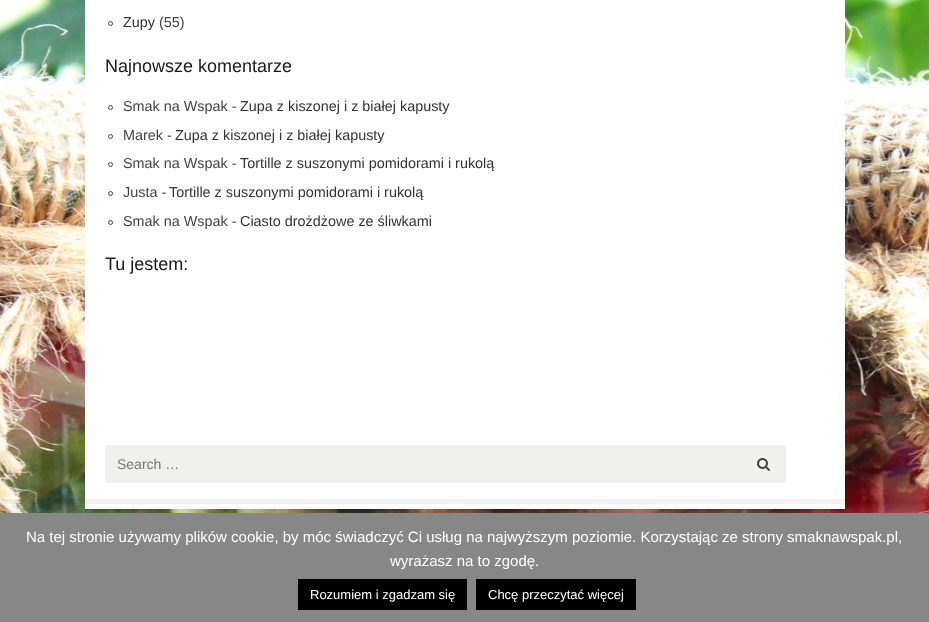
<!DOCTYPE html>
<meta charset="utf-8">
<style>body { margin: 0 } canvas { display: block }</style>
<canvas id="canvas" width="929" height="622"></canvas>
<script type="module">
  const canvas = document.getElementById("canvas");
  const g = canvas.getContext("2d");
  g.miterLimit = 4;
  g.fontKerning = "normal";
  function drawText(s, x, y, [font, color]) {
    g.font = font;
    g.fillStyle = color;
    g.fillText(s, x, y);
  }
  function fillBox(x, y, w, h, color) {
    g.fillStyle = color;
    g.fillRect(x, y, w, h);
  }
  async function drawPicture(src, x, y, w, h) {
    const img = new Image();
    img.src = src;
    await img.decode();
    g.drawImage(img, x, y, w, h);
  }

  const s1 = ["14.4px Liberation Sans", "#333333"];
  const s2 = ["14.4px Liberation Sans", "#444444"];
  const s3 = ["18px Liberation Sans", "#1A1A1A"];
  const s4 = ["14px Liberation Sans", "#757575"];
  const s5 = ["15px Liberation Sans", "#FFFFFF"];
  const s6 = ["13px Liberation Sans", "#FFFFFF"];

  fillBox(0, 0, 929, 622, "#FFFFFF");
  await drawPicture("pic1.png", 0, 0, 929, 513);
  g.strokeStyle = "#FFFFFF";
  g.lineWidth = 5;
  g.strokeRect(87.5, -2.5, 755, 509);
  fillBox(90, 0, 750, 504, "#FFFFFF");
  g.beginPath();
  g.arc(110.5, 23.5, 2, 0, Math.PI * 2);
  g.strokeStyle = "#444444";
  g.lineWidth = 1;
  g.stroke();
  drawText("Zupy", 123, 27, s1);
  drawText("(55)", 159, 27, s2);
  drawText("Najnowsze komentarze", 105, 72, s3);
  g.beginPath();
  g.arc(110.5, 107.5, 2, 0, Math.PI * 2);
  g.stroke();
  drawText("Smak na Wspak -", 123, 111, s2);
  drawText("Zupa z kiszonej i z białej kapusty", 240, 111, s1);
  g.beginPath();
  g.arc(110.5, 136.5, 2, 0, Math.PI * 2);
  g.stroke();
  drawText("Marek -", 123, 140, s2);
  drawText("Zupa z kiszonej i z białej kapusty", 175, 140, s1);
  g.beginPath();
  g.arc(110.5, 164.5, 2, 0, Math.PI * 2);
  g.stroke();
  drawText("Smak na Wspak -", 123, 168, s2);
  drawText("Tortille z suszonymi pomidorami i rukolą", 240, 168, s1);
  g.beginPath();
  g.arc(110.5, 193.5, 2, 0, Math.PI * 2);
  g.stroke();
  drawText("Justa -", 123, 197, s2);
  drawText("Tortille z suszonymi pomidorami i rukolą", 169, 197, s1);
  g.beginPath();
  g.arc(110.5, 222.5, 2, 0, Math.PI * 2);
  g.stroke();
  drawText("Smak na Wspak -", 123, 226, s2);
  drawText("Ciasto drożdżowe ze śliwkami", 240, 226, s1);
  drawText("Tu jestem:", 105, 270, s3);
  fillBox(105, 445, 636, 38, "#F0F0EF");
  drawText("Search …", 117, 469, s4);
  g.fillStyle = "#F0F0EF";
  g.beginPath();
  g.roundRect(741, 445, 45, 38, [0, 3, 3, 0]);
  g.fill();
  await drawPicture("pic2.png", 757, 458, 13, 13);
  g.save();
  g.beginPath();
  g.rect(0, 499, 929, 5);
  g.clip();
  g.fillStyle = "rgba(0, 0, 0, 0.05)";
  g.filter = "blur(0.5px)";
  g.beginPath();
  g.rect(-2, 499, 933, 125);
  g.fill();
  g.filter = "none";
  g.restore();
  g.fillStyle = "rgba(172, 171, 171, 0.3)";
  g.filter = "blur(5px)";
  g.beginPath();
  g.rect(0, 512, 929, 109);
  g.fill();
  g.filter = "none";
  fillBox(0, 513, 929, 109, "#878787");
  drawText("Na tej stronie używamy plików cookie, by móc świadczyć Ci usług na najwyższym poziomie. Korzystając ze strony smaknawspak.pl,", 26, 542, s5);
  drawText("wyrażasz na to zgodę.", 390, 566, s5);
  fillBox(298, 579, 169, 31, "#000000");
  drawText("Rozumiem i zgadzam się", 310, 599, s6);
  fillBox(476, 579, 160, 31, "#000000");
  drawText("Chcę przeczytać więcej", 488, 599, s6);
</script>
